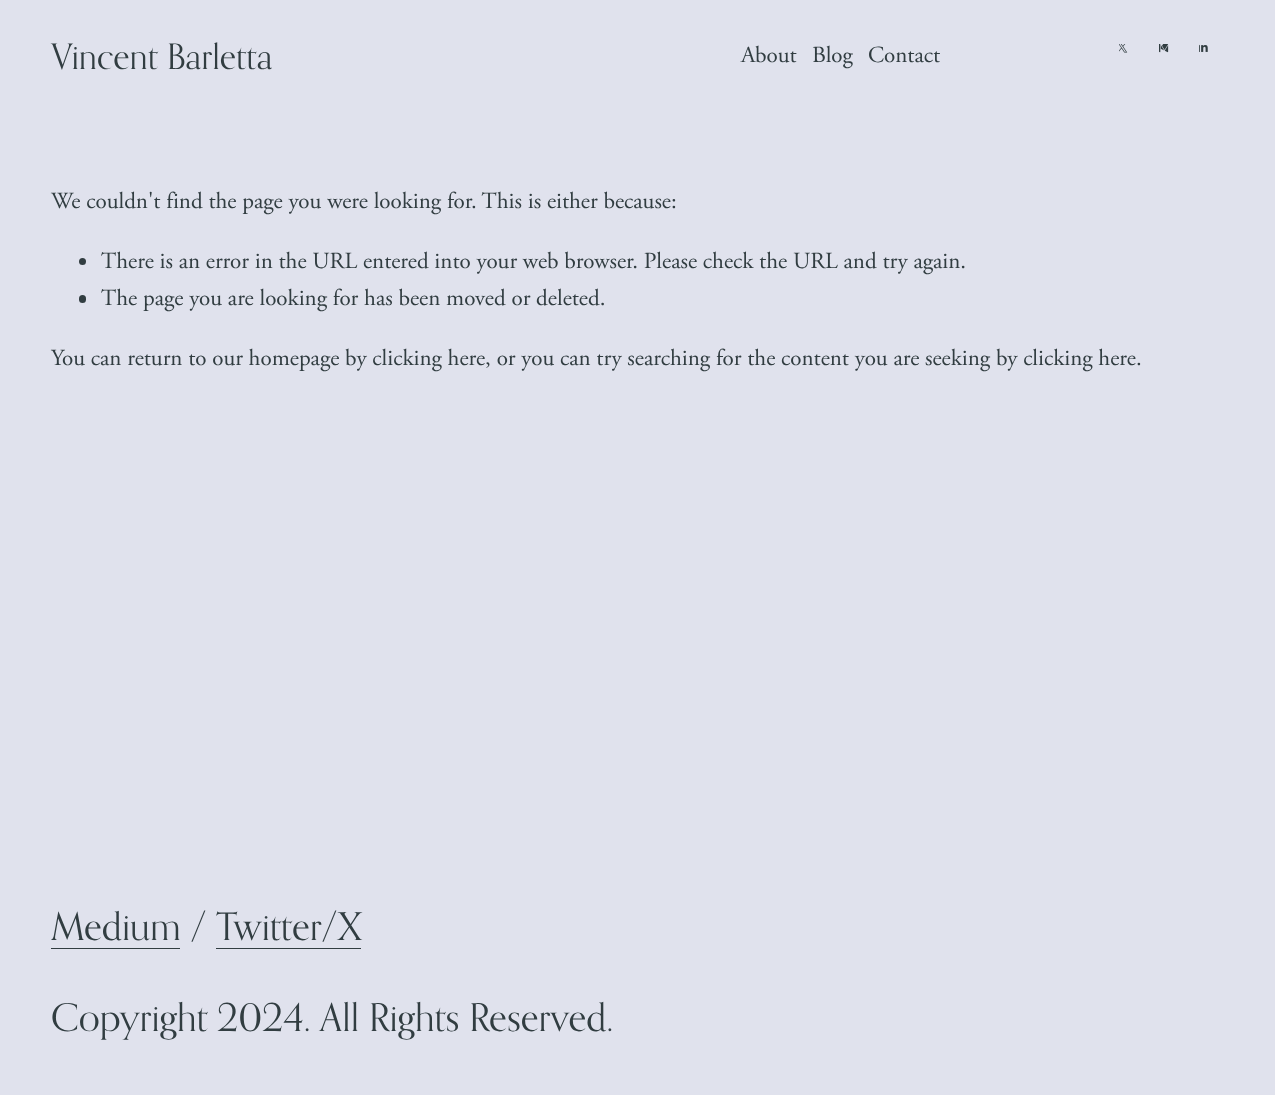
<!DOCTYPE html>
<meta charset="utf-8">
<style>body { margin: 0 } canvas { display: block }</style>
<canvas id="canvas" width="1275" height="1095"></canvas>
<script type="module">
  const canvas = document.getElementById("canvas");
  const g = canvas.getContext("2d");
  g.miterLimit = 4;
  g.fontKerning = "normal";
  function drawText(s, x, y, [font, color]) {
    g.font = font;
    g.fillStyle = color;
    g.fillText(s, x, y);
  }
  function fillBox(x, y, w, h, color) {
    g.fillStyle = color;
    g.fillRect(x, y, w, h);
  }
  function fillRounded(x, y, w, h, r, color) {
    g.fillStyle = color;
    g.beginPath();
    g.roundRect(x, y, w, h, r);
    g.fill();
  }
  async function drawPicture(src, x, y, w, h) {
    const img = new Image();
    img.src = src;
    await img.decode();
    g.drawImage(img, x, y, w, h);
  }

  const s1 = ["35.25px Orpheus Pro", "#313D41"];
  const s2 = ["23.05px Adobe Garamond", "#313D41"];
  const s3 = ["38.4px Orpheus Pro", "#313D41"];

  fillBox(0, 0, 1275, 1095, "#E0E2ED");
  drawText("Vincent Barletta", 51, 69, s1);
  drawText("About", 741, 62, s2);
  drawText("Blog", 812, 62, s2);
  drawText("Contact", 868, 62, s2);
  await drawPicture("pic1.png", 1119, 44, 9, 9);
  await drawPicture("pic2.png", 1159, 44, 10, 9);
  await drawPicture("pic3.png", 1199, 44, 9, 8);
  drawText("We couldn't find the page you were looking for. This is either because:", 51, 208, s2);
  g.beginPath();
  g.arc(82.5, 261.5, 3.5, 0, Math.PI * 2);
  g.fill();
  drawText("There is an error in the URL entered into your web browser. Please check the URL and try again.", 101, 268, s2);
  fillRounded(79, 295, 7, 8, 3.5, "#313D41");
  drawText("The page you are looking for has been moved or deleted.", 101, 305, s2);
  drawText("You can return to our homepage by clicking here, or you can try searching for the content you are seeking by clicking here.", 51, 365, s2);
  drawText("Medium / Twitter/X", 51, 940, s3);
  fillBox(51, 948, 129, 1, "#313D41");
  fillBox(216, 948, 145, 1, "#313D41");
  drawText("Copyright 2024. All Rights Reserved.", 51, 1031, s3);
</script>
